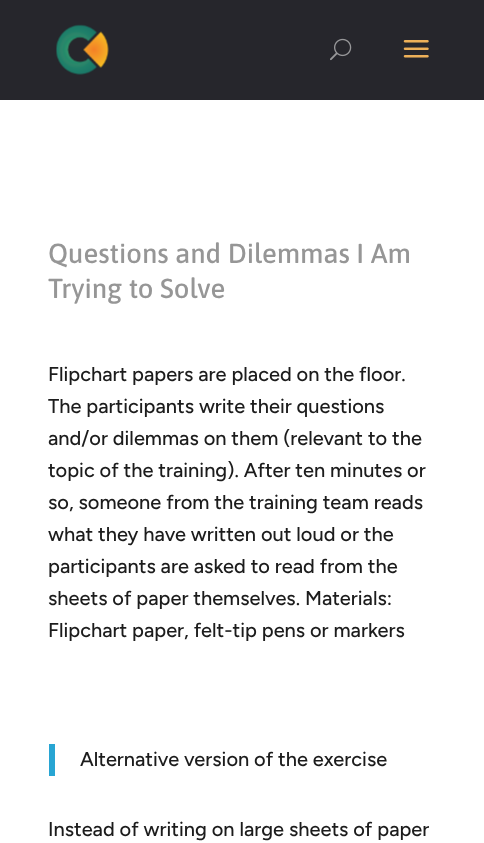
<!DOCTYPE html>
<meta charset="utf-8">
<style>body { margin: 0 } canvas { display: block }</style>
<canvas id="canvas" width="484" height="843"></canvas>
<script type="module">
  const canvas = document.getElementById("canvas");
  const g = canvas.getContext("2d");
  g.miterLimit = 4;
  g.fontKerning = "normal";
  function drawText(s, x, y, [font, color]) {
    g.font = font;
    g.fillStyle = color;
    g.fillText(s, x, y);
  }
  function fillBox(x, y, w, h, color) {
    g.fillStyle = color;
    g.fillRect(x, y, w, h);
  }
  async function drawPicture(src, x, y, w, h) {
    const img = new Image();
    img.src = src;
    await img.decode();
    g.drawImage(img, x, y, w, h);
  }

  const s1 = ["500 27.5px Asap", "#969696"];
  const s2 = ["500 20px Figtree", "#1C1C1C"];

  fillBox(0, 0, 484, 843, "#FFFFFF");
  fillBox(0, 0, 484, 100, "#26262C");
  await drawPicture("pic1.png", 56, 24, 53, 51);
  await drawPicture("pic2.png", 330, 38, 22, 23);
  await drawPicture("pic3.png", 403, 40, 26, 18);
  drawText("Questions and Dilemmas I Am", 48, 263, s1);
  drawText("Trying to Solve", 48, 298, s1);
  drawText("Flipchart papers are placed on the floor.", 48, 381, s2);
  drawText("The participants write their questions", 48, 413, s2);
  drawText("and/or dilemmas on them (relevant to the", 48, 445, s2);
  drawText("topic of the training). After ten minutes or", 48, 477, s2);
  drawText("so, someone from the training team reads", 48, 509, s2);
  drawText("what they have written out loud or the", 48, 541, s2);
  drawText("participants are asked to read from the", 48, 573, s2);
  drawText("sheets of paper themselves. Materials:", 48, 605, s2);
  drawText("Flipchart paper, felt-tip pens or markers", 48, 637, s2);
  fillBox(49, 744, 6, 32, "#28A5D3");
  drawText("Alternative version of the exercise", 80, 766, s2);
  drawText("Instead of writing on large sheets of paper", 48, 836, s2);
</script>
